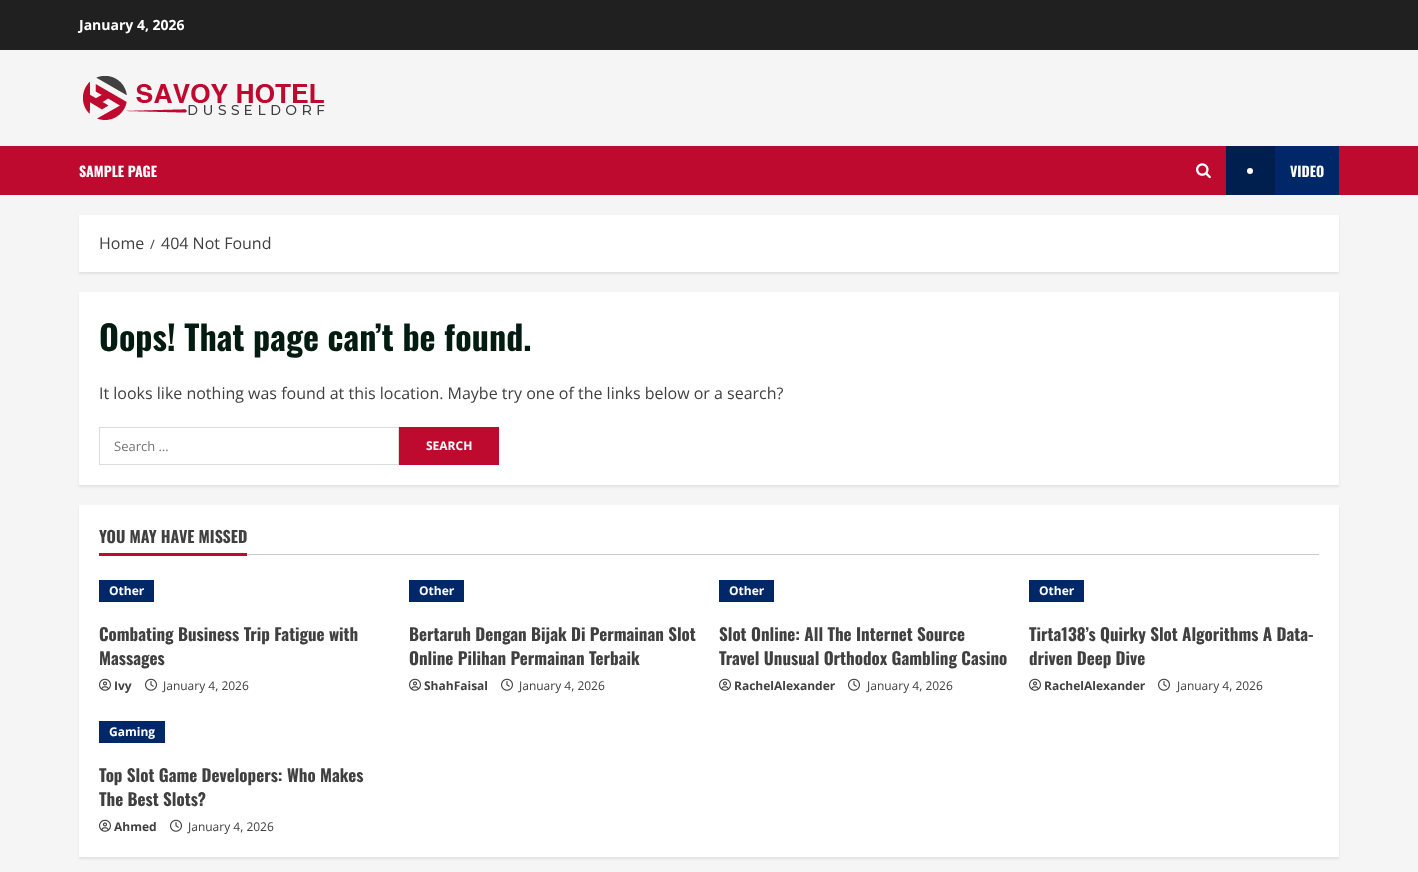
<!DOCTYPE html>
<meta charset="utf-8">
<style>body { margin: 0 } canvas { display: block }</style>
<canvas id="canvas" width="1418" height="872"></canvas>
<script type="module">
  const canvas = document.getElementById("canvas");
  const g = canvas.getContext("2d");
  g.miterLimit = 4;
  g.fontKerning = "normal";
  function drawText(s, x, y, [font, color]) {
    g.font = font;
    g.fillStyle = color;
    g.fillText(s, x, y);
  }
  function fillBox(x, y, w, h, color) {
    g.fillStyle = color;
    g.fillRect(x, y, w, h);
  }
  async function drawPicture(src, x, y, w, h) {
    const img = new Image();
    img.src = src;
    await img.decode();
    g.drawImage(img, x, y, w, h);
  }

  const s1 = ["bold 14px Open Sans", "#FFFFFF"];
  const s2 = ["bold 14px Oswald", "#FFFFFF"];
  const s3 = ["16px Open Sans", "#404040"];
  const s4 = ["13px Open Sans", "#404040"];
  const s5 = ["bold 34px Oswald", "#031B11"];
  const s6 = ["13px Open Sans", "#757575"];
  const s7 = ["bold 12px Open Sans", "#FFFFFF"];
  const s8 = ["bold 16px Oswald", "#404040"];
  const s9 = ["bold 17px Oswald", "#404040"];
  const s10 = ["bold 12px Open Sans", "#404040"];
  const s11 = ["12px Open Sans", "#404040"];

  fillBox(0, 0, 1418, 872, "#F5F5F5");
  fillBox(0, 0, 1418, 50, "#202020");
  drawText("January 4, 2026", 79, 30, s1);
  await drawPicture("pic1.png", 83, 76, 242, 44);
  fillBox(0, 146, 1418, 49, "#BF0A30");
  drawText("SAMPLE PAGE", 79, 177, s2);
  await drawPicture("pic2.png", 1196, 163, 15, 16);
  fillBox(1275, 146, 64, 49, "#002868");
  fillBox(1226, 146, 49, 49, "#001E4E");
  g.fillStyle = "#FFFFFF";
  g.beginPath();
  g.arc(1250, 171, 3, 0, Math.PI * 2);
  g.fill();
  drawText("VIDEO", 1290, 177, s2);
  g.fillStyle = "rgba(0, 0, 0, 0.08)";
  g.filter = "blur(1px)";
  g.beginPath();
  g.rect(79, 217, 1260, 57);
  g.fill();
  g.filter = "none";
  fillBox(79, 215, 1260, 57, "#FFFFFF");
  drawText("Home", 99, 249, s3);
  drawText("/", 150, 249, s4);
  drawText("404 Not Found", 161, 249, s3);
  g.fillStyle = "rgba(0, 0, 0, 0.08)";
  g.filter = "blur(1px)";
  g.beginPath();
  g.rect(79, 294, 1260, 193);
  g.fill();
  g.filter = "none";
  fillBox(79, 292, 1260, 193, "#FFFFFF");
  drawText("Oops! That page can’t be found.", 99, 351, s5);
  drawText("It looks like nothing was found at this location. Maybe try one of the links below or a search?", 99, 399, s3);
  g.strokeStyle = "#DCDCDC";
  g.strokeRect(99.5, 427.5, 299, 37);
  drawText("Search …", 114, 451, s6);
  fillBox(399, 427, 100, 38, "#BF0A30");
  drawText("SEARCH", 426, 450, s7);
  g.fillStyle = "rgba(0, 0, 0, 0.08)";
  g.filter = "blur(1px)";
  g.beginPath();
  g.rect(79, 507, 1260, 352);
  g.fill();
  g.filter = "none";
  fillBox(79, 505, 1260, 352, "#FFFFFF");
  fillBox(247, 554, 1072, 1, "#CCCCCC");
  drawText("YOU MAY HAVE MISSED", 99, 543, s8);
  fillBox(99, 553, 148, 3, "#BF0A30");
  fillBox(99, 580, 55, 22, "#002868");
  drawText("Other", 109, 595, s7);
  drawText("Combating Business Trip Fatigue with", 99, 641, s9);
  drawText("Massages", 99, 665, s9);
  await drawPicture("pic3.png", 99, 678, 12, 13);
  drawText("Ivy", 114, 690, s10);
  await drawPicture("pic4.png", 145, 678, 12, 13);
  drawText("January 4, 2026", 163, 690, s11);
  fillBox(409, 580, 55, 22, "#002868");
  drawText("Other", 419, 595, s7);
  drawText("Bertaruh Dengan Bijak Di Permainan Slot", 409, 641, s9);
  drawText("Online Pilihan Permainan Terbaik", 409, 665, s9);
  await drawPicture("pic3.png", 409, 678, 12, 13);
  drawText("ShahFaisal", 424, 690, s10);
  await drawPicture("pic4.png", 501, 678, 12, 13);
  drawText("January 4, 2026", 519, 690, s11);
  fillBox(719, 580, 55, 22, "#002868");
  drawText("Other", 729, 595, s7);
  drawText("Slot Online: All The Internet Source", 719, 641, s9);
  drawText("Travel Unusual Orthodox Gambling Casino", 719, 665, s9);
  await drawPicture("pic3.png", 719, 678, 12, 13);
  drawText("RachelAlexander", 734, 690, s10);
  await drawPicture("pic4.png", 848, 678, 12, 13);
  drawText("January 4, 2026", 867, 690, s11);
  fillBox(1029, 580, 55, 22, "#002868");
  drawText("Other", 1039, 595, s7);
  drawText("Tirta138’s Quirky Slot Algorithms A Data-", 1029, 641, s9);
  drawText("driven Deep Dive", 1029, 665, s9);
  await drawPicture("pic3.png", 1029, 678, 12, 13);
  drawText("RachelAlexander", 1044, 690, s10);
  await drawPicture("pic4.png", 1158, 678, 12, 13);
  drawText("January 4, 2026", 1177, 690, s11);
  fillBox(99, 721, 66, 22, "#002868");
  drawText("Gaming", 109, 736, s7);
  drawText("Top Slot Game Developers: Who Makes", 99, 782, s9);
  drawText("The Best Slots?", 99, 806, s9);
  await drawPicture("pic3.png", 99, 819, 12, 13);
  drawText("Ahmed", 114, 831, s10);
  await drawPicture("pic4.png", 170, 819, 12, 13);
  drawText("January 4, 2026", 188, 831, s11);
</script>
